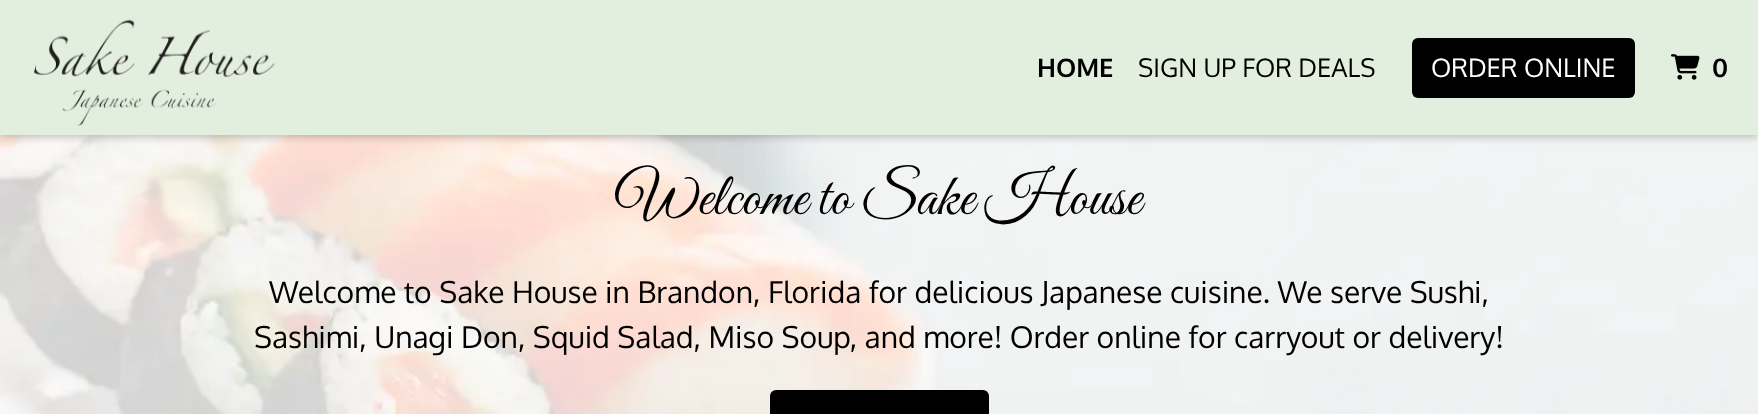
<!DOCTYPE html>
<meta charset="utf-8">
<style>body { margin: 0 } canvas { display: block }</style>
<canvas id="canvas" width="1758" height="414"></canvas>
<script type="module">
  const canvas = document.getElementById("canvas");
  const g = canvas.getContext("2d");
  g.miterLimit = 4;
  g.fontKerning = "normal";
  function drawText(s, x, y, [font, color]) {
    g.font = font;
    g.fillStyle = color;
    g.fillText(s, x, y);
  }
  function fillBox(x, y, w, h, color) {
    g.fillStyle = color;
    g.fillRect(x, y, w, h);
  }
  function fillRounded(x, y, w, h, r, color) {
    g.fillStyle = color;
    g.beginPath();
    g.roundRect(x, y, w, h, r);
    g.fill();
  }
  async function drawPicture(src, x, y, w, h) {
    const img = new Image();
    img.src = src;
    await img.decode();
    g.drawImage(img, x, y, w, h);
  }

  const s1 = ["bold 25.5px Oxygen", "#000000"];
  const s2 = ["25.5px Oxygen", "#000000"];
  const s3 = ["25.5px Oxygen", "#FFFFFF"];
  const s4 = ["60px Great Vibes", "#000000"];
  const s5 = ["30px Oxygen", "#000000"];

  fillBox(0, 0, 1758, 414, "#FFFFFF");
  await drawPicture("pic3.png", 0, 135, 1758, 279);
  g.fillStyle = "rgba(32, 33, 36, 0.28)";
  g.filter = "blur(4.5px)";
  g.beginPath();
  g.rect(0, 2, 1758, 135);
  g.fill();
  g.filter = "none";
  fillBox(0, 0, 1758, 135, "#E3EFDE");
  await drawPicture("pic1.png", 34, 19, 241, 107);
  drawText("HOME", 1037, 77, s1);
  drawText("SIGN UP FOR DEALS", 1138, 77, s2);
  fillRounded(1412, 38, 223, 60, 6, "#000000");
  drawText("ORDER ONLINE", 1431, 77, s3);
  await drawPicture("pic2.png", 1671, 54, 29, 26);
  drawText("0", 1712, 77, s1);
  drawText("Welcome to Sake House", 616, 214, s4);
  drawText("Welcome to Sake House in Brandon, Florida for delicious Japanese cuisine. We serve Sushi,", 269, 303, s5);
  drawText("Sashimi, Unagi Don, Squid Salad, Miso Soup, and more! Order online for carryout or delivery!", 254, 348, s5);
  fillRounded(770, 390, 219, 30, 6, "#000000");
</script>
